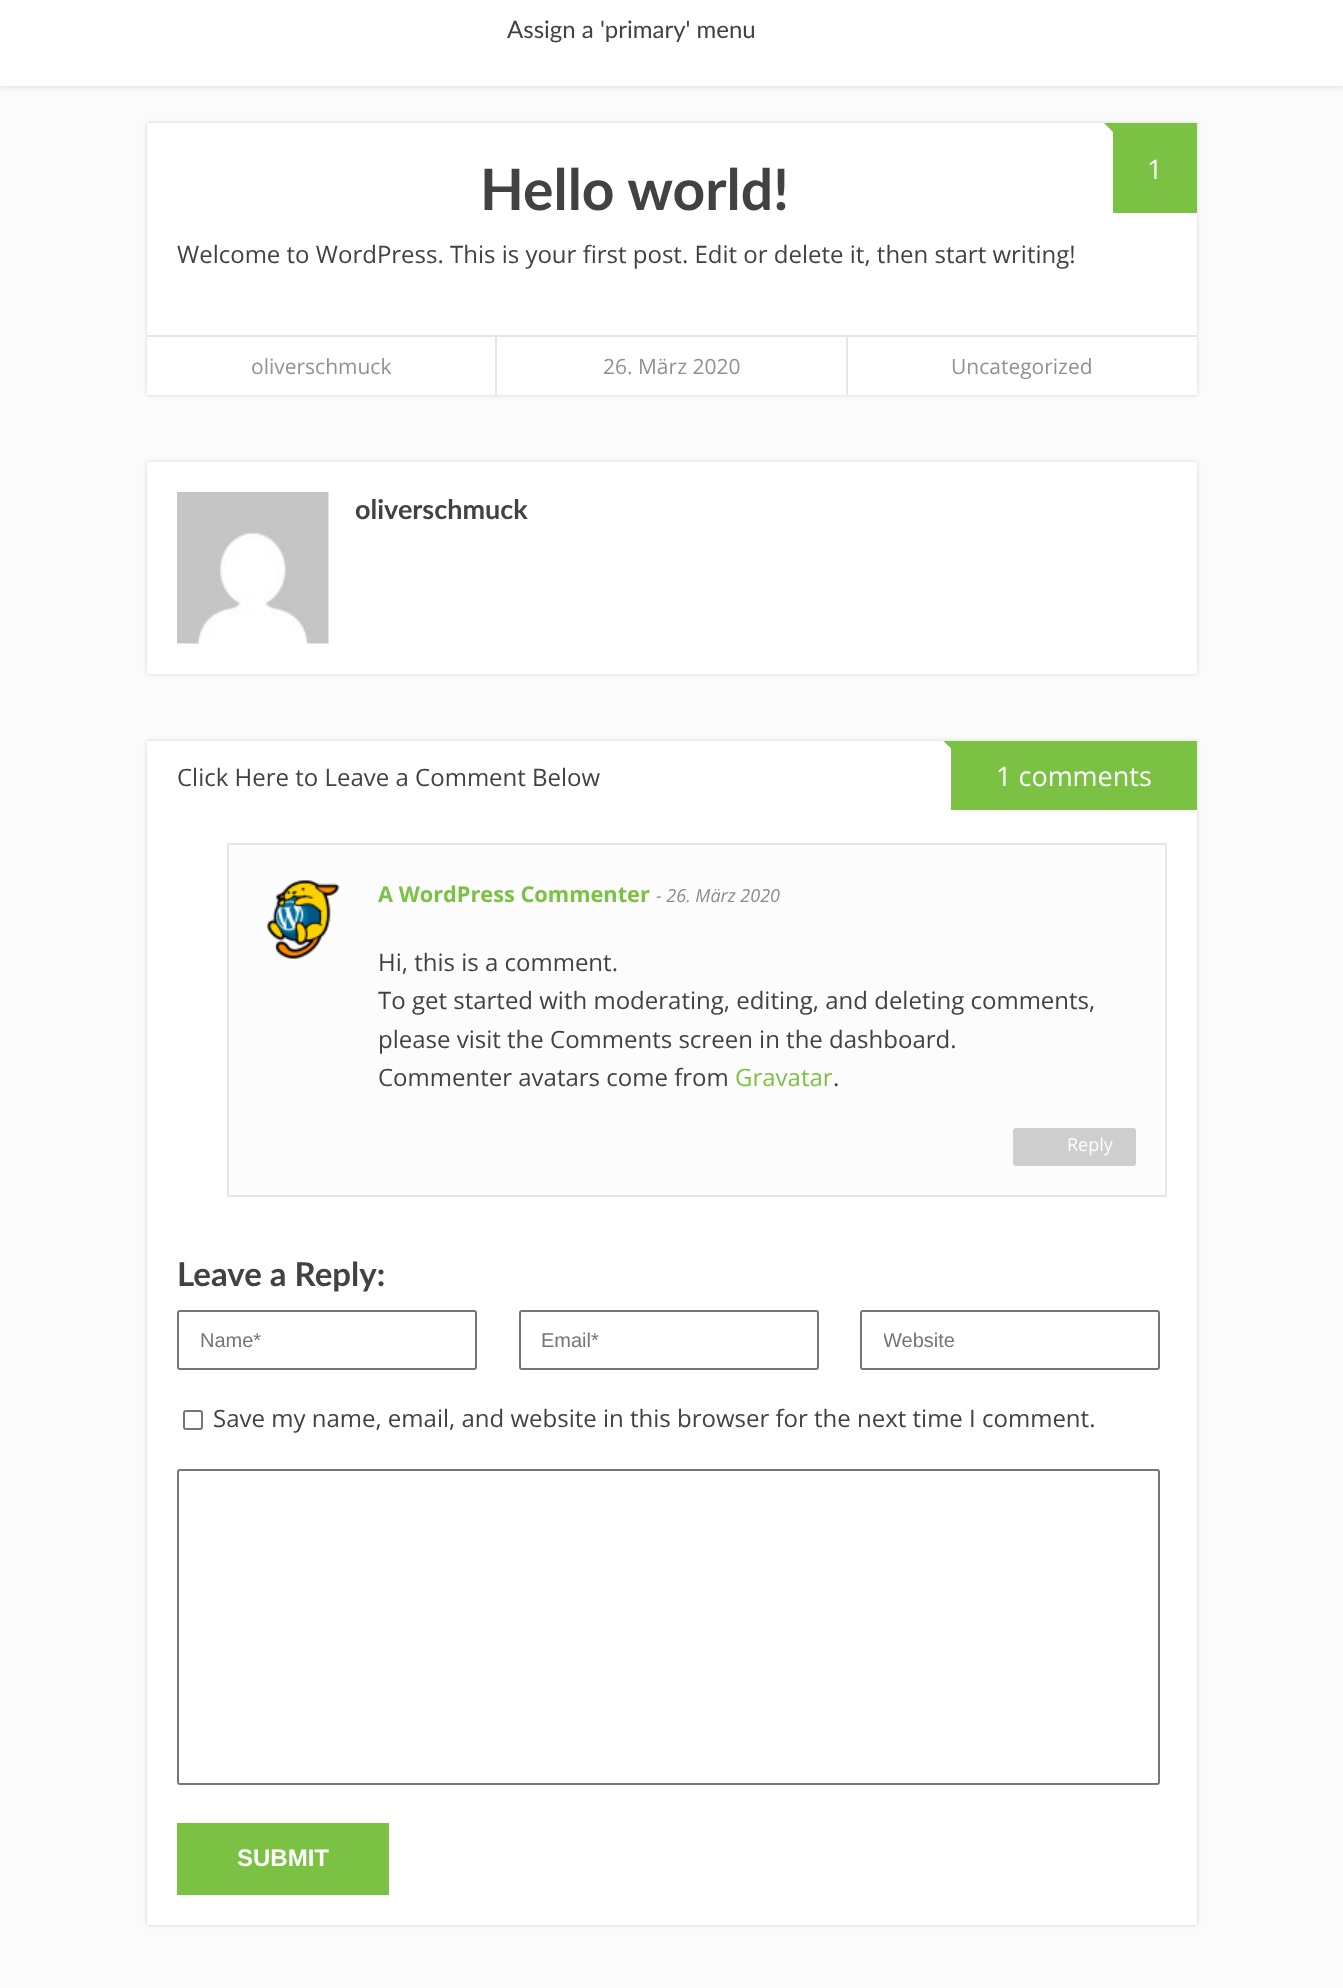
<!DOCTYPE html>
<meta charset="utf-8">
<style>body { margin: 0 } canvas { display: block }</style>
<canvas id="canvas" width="1343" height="1988"></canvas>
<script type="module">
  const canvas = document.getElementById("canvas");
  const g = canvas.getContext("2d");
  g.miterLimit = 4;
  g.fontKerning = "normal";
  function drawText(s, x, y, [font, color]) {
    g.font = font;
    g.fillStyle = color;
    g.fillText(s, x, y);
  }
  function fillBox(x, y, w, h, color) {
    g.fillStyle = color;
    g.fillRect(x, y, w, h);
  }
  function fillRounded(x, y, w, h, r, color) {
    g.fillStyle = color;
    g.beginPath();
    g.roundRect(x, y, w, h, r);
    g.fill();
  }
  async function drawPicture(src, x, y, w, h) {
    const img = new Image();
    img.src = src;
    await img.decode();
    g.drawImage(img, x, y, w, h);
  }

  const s1 = ["24px Lato", "#424242"];
  const s2 = ["bold 57px Lato", "#424242"];
  const s3 = ["27px Open Sans", "#FFFFFF"];
  const s4 = ["24px Open Sans", "#424242"];
  const s5 = ["21px Open Sans", "#939292"];
  const s6 = ["bold 27px Lato", "#424242"];
  const s7 = ["bold 21.75px Open Sans", "#7BC143"];
  const s8 = ["italic 18px Open Sans", "#8C8C8C"];
  const s9 = ["24px Open Sans", "#7BC143"];
  const s10 = ["18px Open Sans", "#FFFFFF"];
  const s11 = ["bold 33px Lato", "#424242"];
  const s12 = ["20px Liberation Sans", "#757575"];
  const s13 = ["bold 24px Liberation Sans", "#FFFFFF"];

  fillBox(0, 0, 1343, 1988, "#FBFBFB");
  g.fillStyle = "#DFDDDD";
  g.filter = "blur(3px)";
  g.beginPath();
  g.rect(0, 2, 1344, 85);
  g.fill();
  g.filter = "none";
  fillBox(0, 0, 1343, 86, "#FFFFFF");
  drawText("Assign a 'primary' menu", 507, 38, s1);
  g.fillStyle = "rgba(1, 1, 1, 0.16)";
  g.filter = "blur(2px)";
  g.beginPath();
  g.rect(147, 123, 1050, 272);
  g.fill();
  g.filter = "none";
  fillBox(147, 123, 1050, 272, "#FFFFFF");
  drawText("Hello world!", 480, 210, s2);
  fillBox(1113, 123, 84, 90, "#7BC143");
  g.beginPath();
  g.moveTo(1104, 123);
  g.lineTo(1113, 123);
  g.lineTo(1113, 132);
  g.closePath();
  g.fill();
  drawText("1", 1147, 179, s3);
  drawText("Welcome to WordPress. This is your first post. Edit or delete it, then start writing!", 177, 263, s4);
  fillBox(147, 335, 1050, 2, "#E6E6E6");
  fillBox(495, 336, 2, 59, "#E6E6E6");
  drawText("oliverschmuck", 251, 374, s5);
  fillBox(846, 336, 2, 59, "#E6E6E6");
  drawText("26. März 2020", 603, 374, s5);
  drawText("Uncategorized", 951, 374, s5);
  g.fillStyle = "rgba(1, 1, 1, 0.16)";
  g.filter = "blur(2px)";
  g.beginPath();
  g.rect(147, 462, 1050, 212);
  g.fill();
  g.filter = "none";
  fillBox(147, 462, 1050, 212, "#FFFFFF");
  await drawPicture("pic1.png", 177, 492, 152, 152);
  drawText("oliverschmuck", 355, 519, s6);
  g.fillStyle = "rgba(1, 1, 1, 0.16)";
  g.filter = "blur(2px)";
  g.beginPath();
  g.rect(147, 741, 1050, 1184);
  g.fill();
  g.filter = "none";
  fillBox(147, 741, 1050, 1184, "#FFFFFF");
  drawText("Click Here to Leave a Comment Below", 177, 786, s4);
  fillBox(951, 741, 246, 69, "#7BC143");
  g.beginPath();
  g.moveTo(951, 741);
  g.lineTo(951, 748.5);
  g.lineTo(943.5, 741);
  g.closePath();
  g.fill();
  drawText("1 comments", 996, 786, s3);
  g.fillStyle = "#FCFCFC";
  g.beginPath();
  g.rect(228, 844, 938, 352);
  g.fill();
  g.strokeStyle = "#E6E6E6";
  g.lineWidth = 2;
  g.stroke();
  await drawPicture("pic2.png", 266, 880, 74, 79);
  drawText("A WordPress Commenter", 378, 902, s7);
  drawText("- 26. März 2020", 656, 902, s8);
  drawText("Hi, this is a comment.", 378, 971, s4);
  drawText("To get started with moderating, editing, and deleting comments,", 378, 1009, s4);
  drawText("please visit the Comments screen in the dashboard.", 378, 1048, s4);
  drawText("Commenter avatars come from", 378, 1086, s4);
  drawText("Gravatar", 735, 1086, s9);
  drawText(".", 833, 1086, s4);
  fillRounded(1013, 1128, 123, 38, 3, "#CECECE");
  drawText("Reply", 1067, 1151, s10);
  drawText("Leave a Reply:", 177, 1286, s11);
  g.beginPath();
  g.roundRect(178, 1311, 298, 58, 2);
  g.strokeStyle = "#767676";
  g.stroke();
  drawText("Name*", 200, 1347, s12);
  g.beginPath();
  g.roundRect(520, 1311, 298, 58, 2);
  g.stroke();
  drawText("Email*", 541, 1347, s12);
  g.beginPath();
  g.roundRect(861, 1311, 298, 58, 2);
  g.stroke();
  g.save();
  g.beginPath();
  g.rect(884, 1329, 273, 23);
  g.clip();
  drawText("Website", 883, 1347, s12);
  g.restore();
  g.beginPath();
  g.roundRect(184, 1411, 18, 18, 2);
  g.stroke();
  drawText("Save my name, email, and website in this browser for the next time I comment.", 213, 1427, s4);
  g.beginPath();
  g.roundRect(178, 1470, 981, 314, 2);
  g.stroke();
  fillBox(177, 1823, 212, 72, "#7BC143");
  drawText("SUBMIT", 237, 1866, s13);
</script>
